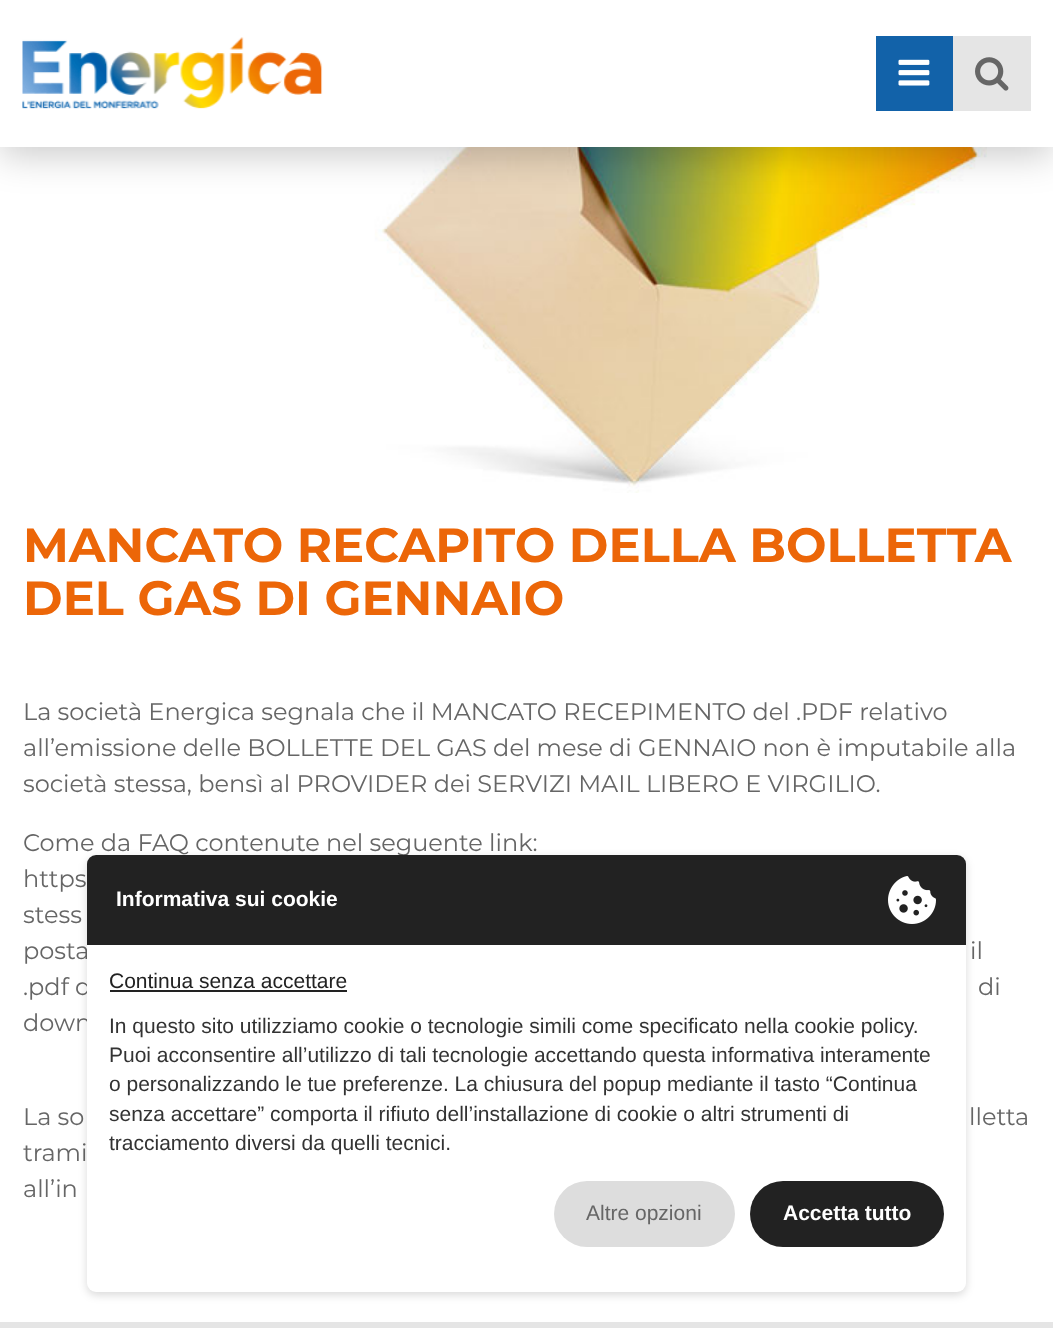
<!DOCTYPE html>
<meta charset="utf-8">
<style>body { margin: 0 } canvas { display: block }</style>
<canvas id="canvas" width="1053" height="1328"></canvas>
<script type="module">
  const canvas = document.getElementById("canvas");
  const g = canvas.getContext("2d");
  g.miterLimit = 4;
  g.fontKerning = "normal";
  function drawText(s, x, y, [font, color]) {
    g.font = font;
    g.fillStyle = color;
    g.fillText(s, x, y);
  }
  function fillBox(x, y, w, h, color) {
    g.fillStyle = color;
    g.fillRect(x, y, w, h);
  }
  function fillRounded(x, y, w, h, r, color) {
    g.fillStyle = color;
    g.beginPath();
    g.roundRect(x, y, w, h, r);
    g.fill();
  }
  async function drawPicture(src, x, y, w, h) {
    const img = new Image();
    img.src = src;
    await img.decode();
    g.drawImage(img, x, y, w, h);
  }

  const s1 = ["bold 48px Montserrat", "#EC6608"];
  const s2 = ["24px Montserrat", "#666666"];
  const s3 = ["bold 21px Liberation Sans", "#FFFFFF"];
  const s4 = ["21px Liberation Sans", "#222222"];
  const s5 = ["21px Liberation Sans", "#333333"];
  const s6 = ["21px Liberation Sans", "#666666"];

  fillBox(0, 0, 1053, 1328, "#FFFFFF");
  await drawPicture("pic4.png", 75, 147, 912, 346);
  g.fillStyle = "rgba(0, 0, 0, 0.2)";
  g.filter = "blur(18px)";
  g.beginPath();
  g.rect(0, 9, 1053, 147);
  g.fill();
  g.filter = "none";
  fillBox(0, 0, 1053, 147, "#FFFFFF");
  await drawPicture("pic1.png", 22, 37, 301, 72);
  fillBox(876, 36, 77, 75, "#1262A9");
  await drawPicture("pic2.png", 898, 59, 32, 27);
  fillBox(953, 36, 78, 75, "#E5E5E5");
  await drawPicture("pic3.png", 975, 57, 34, 34);
  drawText("MANCATO RECAPITO DELLA BOLLETTA", 23, 562, s1);
  drawText("DEL GAS DI GENNAIO", 23, 615, s1);
  drawText("La società Energica segnala che il MANCATO RECEPIMENTO del .PDF relativo", 23, 720, s2);
  drawText("all’emissione delle BOLLETTE DEL GAS del mese di GENNAIO non è imputabile alla", 23, 756, s2);
  drawText("società stessa, bensì al PROVIDER dei SERVIZI MAIL LIBERO E VIRGILIO.", 23, 792, s2);
  drawText("Come da FAQ contenute nel seguente link:", 23, 851, s2);
  drawText("https", 23, 887, s2);
  drawText("stess", 23, 923, s2);
  drawText("posta", 23, 959, s2);
  drawText("il", 970, 959, s2);
  drawText(".pdf d", 23, 995, s2);
  drawText("di", 978, 995, s2);
  drawText("down", 23, 1031, s2);
  drawText("La so", 23, 1125, s2);
  drawText("lletta", 969, 1125, s2);
  drawText("trami", 23, 1161, s2);
  drawText("all’in", 23, 1197, s2);
  fillBox(0, 1322, 1053, 6, "#E5E5E5");
  g.fillStyle = "rgba(0, 0, 0, 0.15)";
  g.filter = "blur(4.5px)";
  g.beginPath();
  g.roundRect(87, 858, 879, 437, 9);
  g.fill();
  g.filter = "none";
  fillRounded(87, 855, 879, 437, 9, "#FFFFFF");
  g.fillStyle = "#222222";
  g.beginPath();
  g.roundRect(87, 855, 879, 90, [9, 9, 0, 0]);
  g.fill();
  drawText("Informativa sui cookie", 116, 906, s3);
  await drawPicture("pic5.png", 888, 876, 48, 48);
  drawText("Continua senza accettare", 109, 988, s4);
  fillBox(110, 990, 237, 2, "#222222");
  drawText("In questo sito utilizziamo cookie o tecnologie simili come specificato nella cookie policy.", 109, 1033, s5);
  drawText("Puoi acconsentire all’utilizzo di tali tecnologie accettando questa informativa interamente", 109, 1062, s5);
  drawText("o personalizzando le tue preferenze. La chiusura del popup mediante il tasto “Continua", 109, 1091, s5);
  drawText("senza accettare” comporta il rifiuto dell’installazione di cookie o altri strumenti di", 109, 1121, s5);
  drawText("tracciamento diversi da quelli tecnici.", 109, 1150, s5);
  fillRounded(554, 1181, 181, 66, 33, "#DDDDDD");
  drawText("Altre opzioni", 586, 1220, s6);
  fillRounded(750, 1181, 194, 66, 33, "#222222");
  drawText("Accetta tutto", 783, 1220, s3);
</script>
